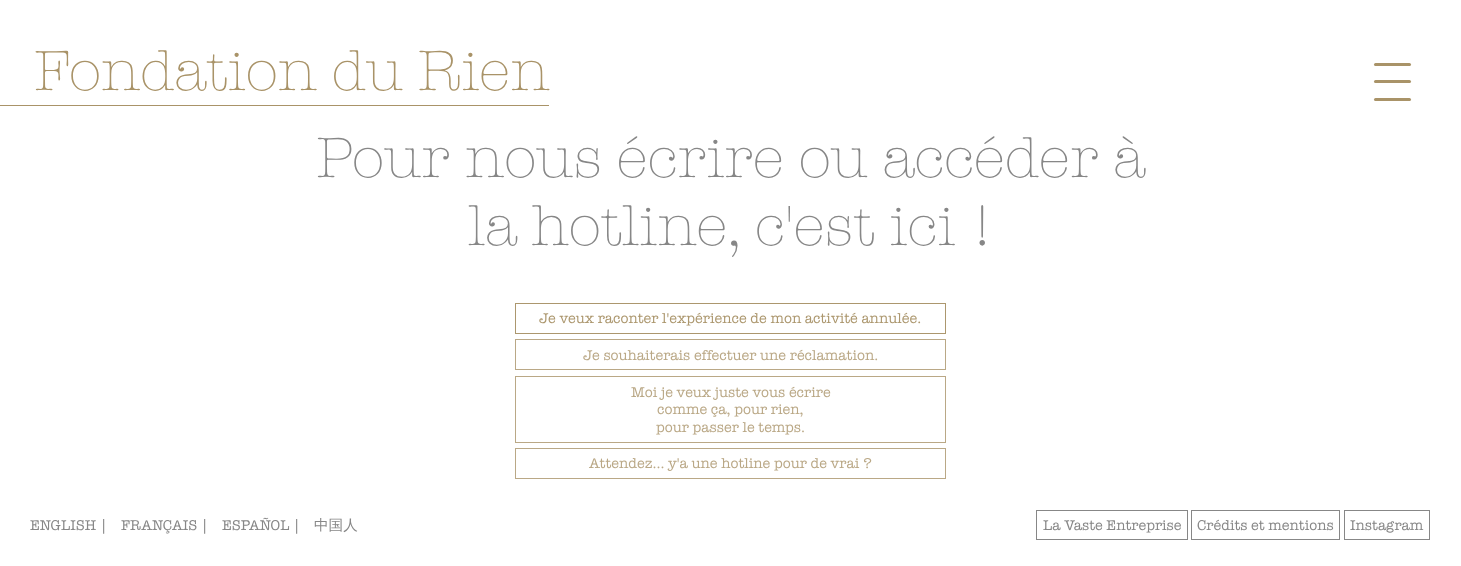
<!DOCTYPE html>
<meta charset="utf-8">
<style>body { margin: 0 } canvas { display: block }</style>
<canvas id="canvas" width="1461" height="566"></canvas>
<script type="module">
  const canvas = document.getElementById("canvas");
  const g = canvas.getContext("2d");
  g.miterLimit = 4;
  g.fontKerning = "normal";
  function drawText(s, x, y, [font, color]) {
    g.font = font;
    g.fillStyle = color;
    g.fillText(s, x, y);
  }
  function fillBox(x, y, w, h, color) {
    g.fillStyle = color;
    g.fillRect(x, y, w, h);
  }
  function fillRounded(x, y, w, h, r, color) {
    g.fillStyle = color;
    g.beginPath();
    g.roundRect(x, y, w, h, r);
    g.fill();
  }

  const s1 = ["300 58.5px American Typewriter", "#A99368"];
  const s2 = ["300 58.5px American Typewriter", "#878787"];
  const s3 = ["14.6px American Typewriter", "#AC976E"];
  const s4 = ["14.6px American Typewriter", "#BAA886"];
  const s5 = ["14.6px American Typewriter", "#878787"];
  const s6 = ["500 14.6px WenQuanYi Zen Hei", "#878787"];

  fillBox(0, 0, 1461, 566, "#FFFFFF");
  drawText("Fondation du Rien", 34, 90, s1);
  fillBox(0, 105, 549, 1, "#A99368");
  fillRounded(1374, 63, 37, 3, 1.5, "#A99368");
  fillRounded(1374, 80, 37, 3, 1.5, "#A99368");
  fillRounded(1374, 98, 37, 3, 1.5, "#A99368");
  drawText("Pour nous écrire ou accéder à", 316, 177, s2);
  drawText("la hotline, c'est ici !", 468, 245, s2);
  g.strokeStyle = "#AC976E";
  g.strokeRect(515.5, 303.5, 430, 30);
  drawText("Je veux raconter l'expérience de mon activité annulée.", 539, 323, s3);
  g.strokeStyle = "#BAA886";
  g.strokeRect(515.5, 339.5, 430, 30);
  drawText("Je souhaiterais effectuer une réclamation.", 583, 360, s4);
  g.strokeRect(515.5, 376.5, 430, 66);
  drawText("Moi je veux juste vous écrire", 631, 397, s4);
  drawText("comme ça, pour rien,", 657, 414, s4);
  drawText("pour passer le temps.", 656, 432, s4);
  g.strokeRect(515.5, 448.5, 430, 30);
  drawText("Attendez... y'a une hotline pour de vrai ?", 589, 468, s4);
  drawText("ENGLISH |", 30, 530, s5);
  drawText("FRANÇAIS |", 121, 530, s5);
  drawText("ESPAÑOL |", 222, 530, s5);
  drawText("中国人", 314, 530, s6);
  g.strokeStyle = "#878787";
  g.strokeRect(1036.5, 510.5, 151, 29);
  drawText("La Vaste Entreprise", 1043, 530, s5);
  g.strokeRect(1191.5, 510.5, 148, 29);
  drawText("Crédits et mentions", 1197, 530, s5);
  g.strokeRect(1344.5, 510.5, 85, 29);
  drawText("Instagram", 1350, 530, s5);
</script>
